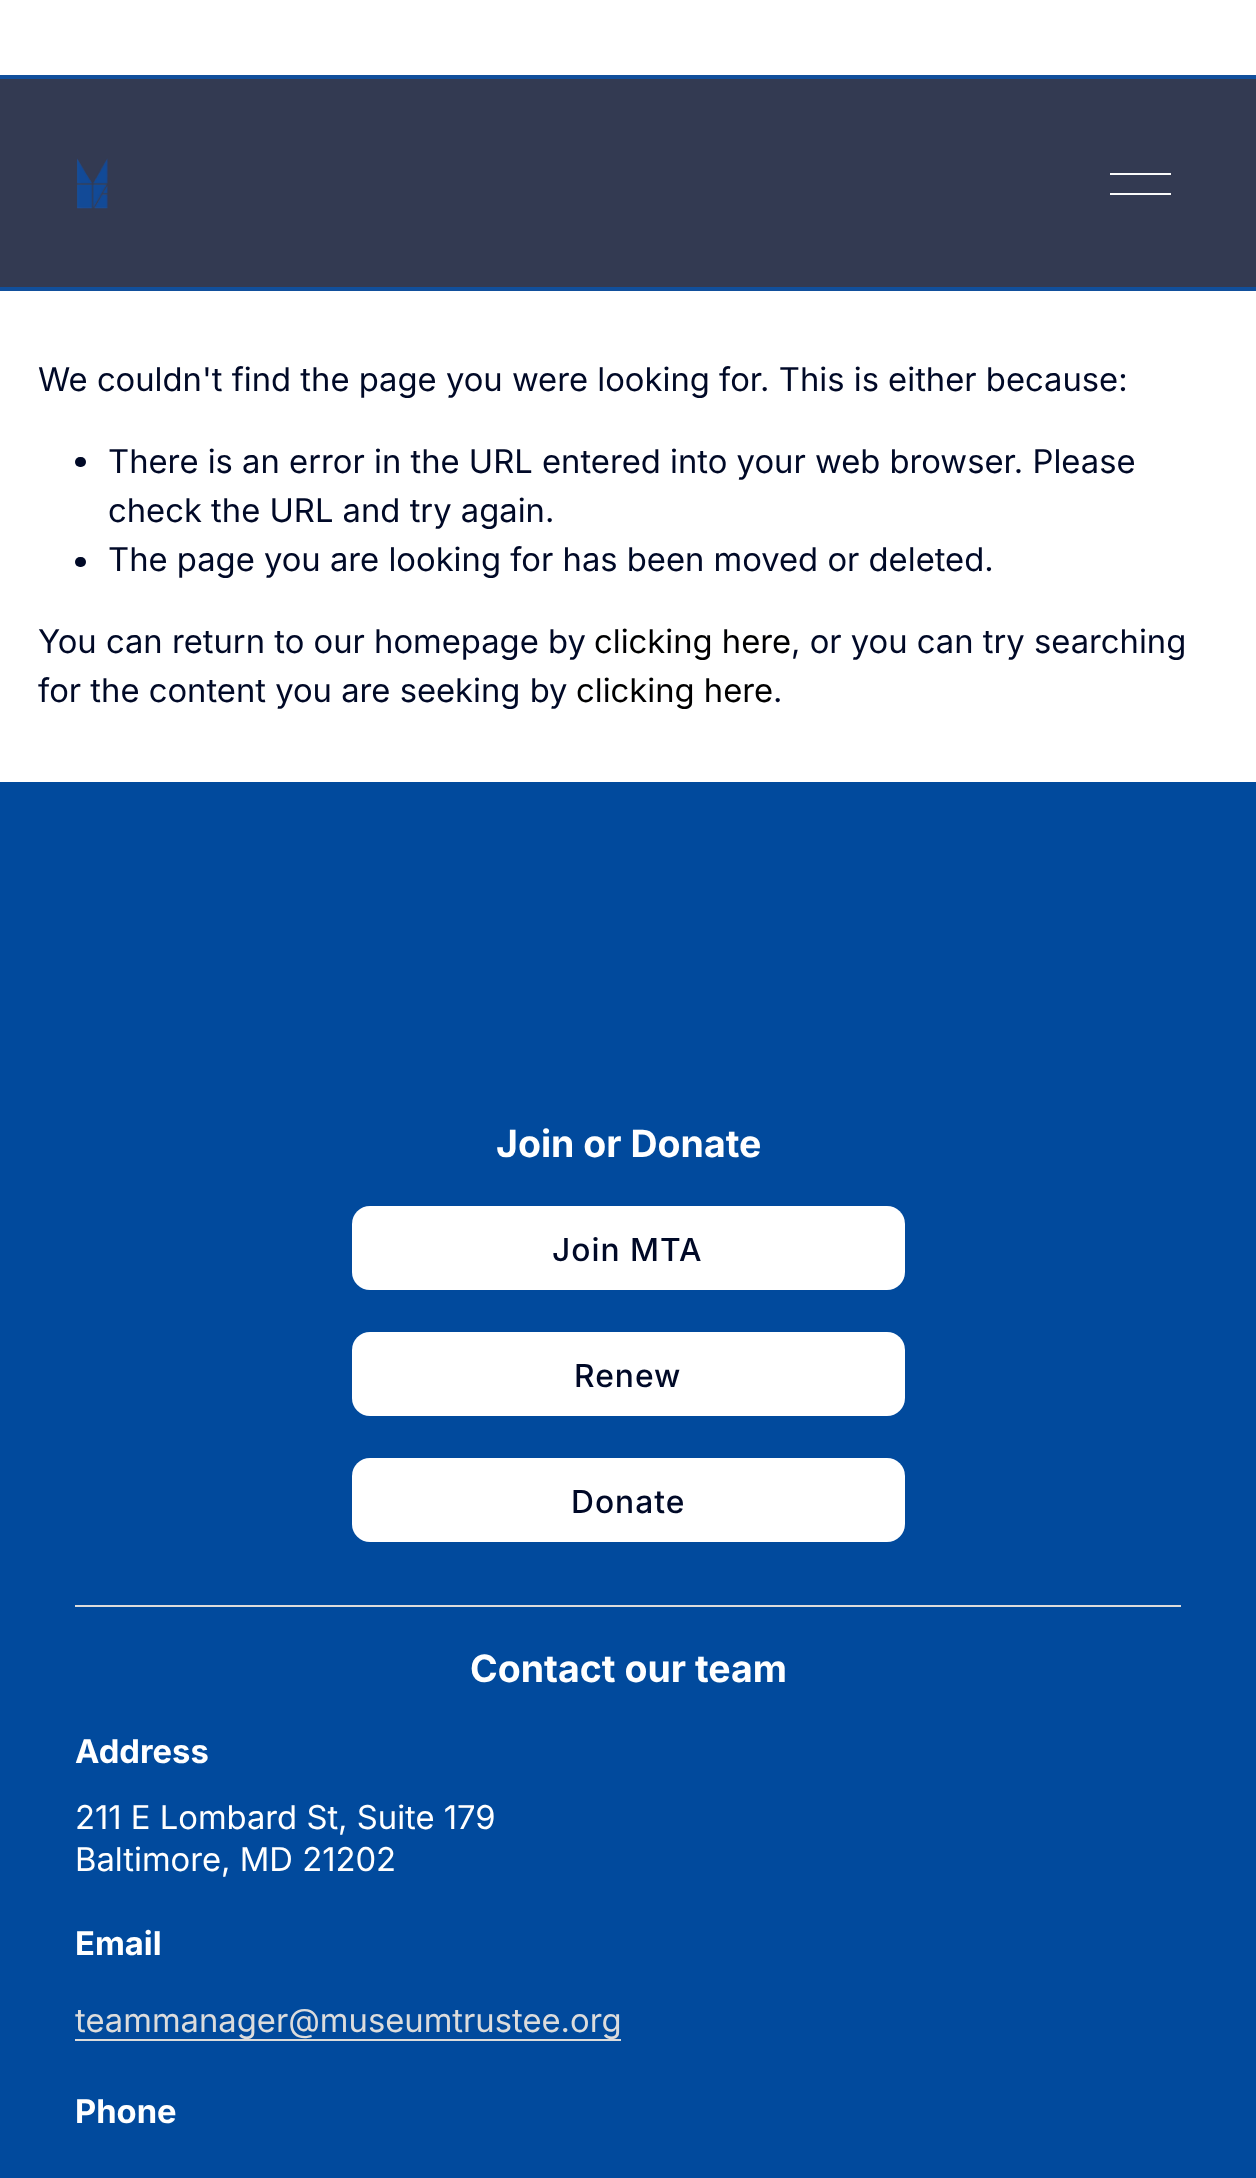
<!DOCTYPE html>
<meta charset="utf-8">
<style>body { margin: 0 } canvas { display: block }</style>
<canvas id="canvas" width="1256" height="2178"></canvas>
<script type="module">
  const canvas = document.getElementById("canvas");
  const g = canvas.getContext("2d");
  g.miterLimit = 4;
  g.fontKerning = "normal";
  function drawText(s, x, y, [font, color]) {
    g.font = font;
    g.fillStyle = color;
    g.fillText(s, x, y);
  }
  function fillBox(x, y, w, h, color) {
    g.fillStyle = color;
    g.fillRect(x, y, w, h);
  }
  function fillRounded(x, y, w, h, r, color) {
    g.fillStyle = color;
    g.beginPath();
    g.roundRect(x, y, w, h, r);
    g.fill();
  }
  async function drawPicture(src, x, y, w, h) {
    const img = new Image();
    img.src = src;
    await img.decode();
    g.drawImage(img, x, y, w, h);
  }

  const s1 = ["32.75px Inter", "#000927"];
  const s2 = ["32.75px Inter", "#000000"];
  const s3 = ["bold 37.5px Inter", "#FFFFFF"];
  const s4 = ["500 31.75px Inter", "#000927"];
  const s5 = ["bold 32.75px Inter", "#FFFFFF"];
  const s6 = ["32.75px Inter", "#FFFFFF"];
  const s7 = ["32.75px Inter", "#DCDCDC"];

  fillBox(0, 0, 1256, 2178, "#FFFFFF");
  fillBox(0, 75, 1256, 4, "#114F9C");
  fillBox(0, 287, 1256, 4, "#114F9C");
  fillBox(0, 79, 1256, 208, "#333A52");
  await drawPicture("pic1.png", 77, 158, 31, 51);
  fillBox(1110, 173, 61, 2, "#FAFAFA");
  fillBox(1110, 193, 61, 2, "#FAFAFA");
  drawText("We couldn't find the page you were looking for. This is either because:", 38, 391, s1);
  fillRounded(75, 457, 11, 10, 5, "#000927");
  drawText("There is an error in the URL entered into your web browser. Please", 108, 473, s1);
  drawText("check the URL and try again.", 108, 522, s1);
  fillRounded(75, 557, 11, 10, 5, "#000927");
  drawText("The page you are looking for has been moved or deleted.", 108, 571, s1);
  drawText("You can return to our homepage by", 38, 653, s1);
  drawText("clicking here", 594, 653, s2);
  drawText(", or you can try searching", 791, 653, s1);
  drawText("for the content you are seeking by", 38, 702, s1);
  drawText("clicking here", 576, 702, s2);
  drawText(".", 773, 702, s1);
  fillBox(0, 782, 1256, 1396, "#014A9D");
  drawText("Join or Donate", 496, 1157, s3);
  fillRounded(352, 1206, 553, 84, 18, "#FFFFFF");
  g.letterSpacing = "1px";
  drawText("Join MTA", 552, 1261, s4);
  fillRounded(352, 1332, 553, 84, 18, "#FFFFFF");
  drawText("Renew", 574, 1387, s4);
  fillRounded(352, 1458, 553, 84, 18, "#FFFFFF");
  drawText("Donate", 571, 1513, s4);
  fillBox(75, 1605, 1106, 2, "#DCDCDC");
  g.letterSpacing = "0px";
  drawText("Contact our team", 470, 1682, s3);
  drawText("Address", 75, 1763, s5);
  drawText("211 E Lombard St, Suite 179", 75, 1829, s6);
  drawText("Baltimore, MD 21202", 75, 1871, s6);
  drawText("Email", 75, 1955, s5);
  fillBox(75, 2039, 546, 2, "#DCDCDC");
  drawText("teammanager@museumtrustee.org", 75, 2032, s7);
  drawText("Phone", 75, 2123, s5);
</script>
